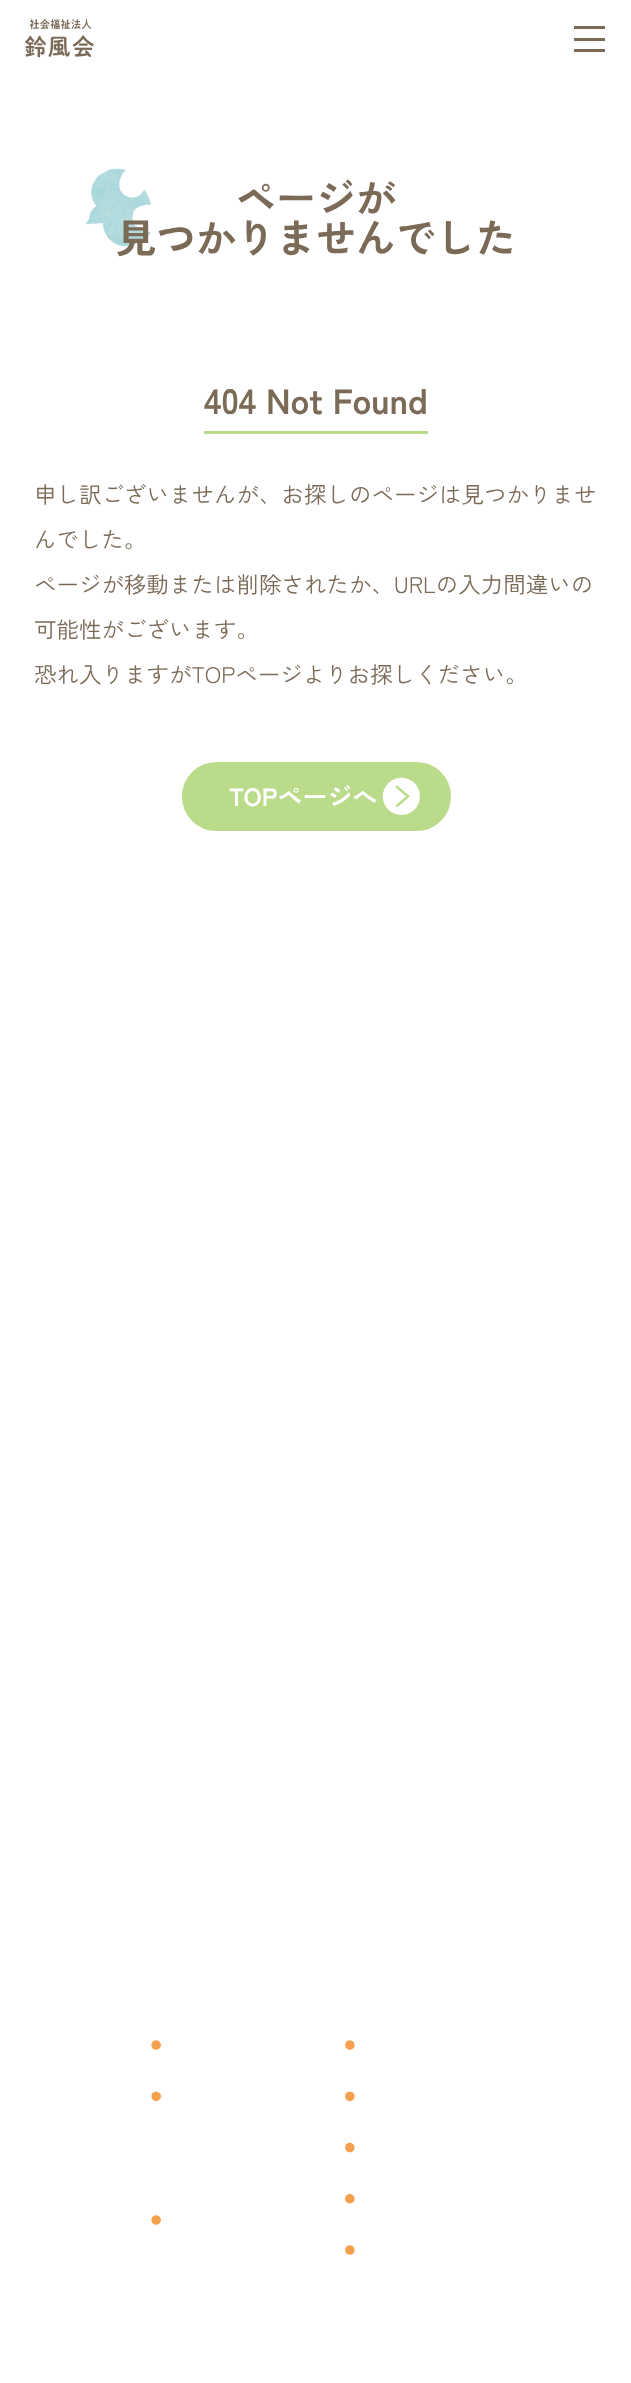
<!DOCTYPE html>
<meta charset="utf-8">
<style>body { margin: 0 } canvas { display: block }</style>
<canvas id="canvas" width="631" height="2383"></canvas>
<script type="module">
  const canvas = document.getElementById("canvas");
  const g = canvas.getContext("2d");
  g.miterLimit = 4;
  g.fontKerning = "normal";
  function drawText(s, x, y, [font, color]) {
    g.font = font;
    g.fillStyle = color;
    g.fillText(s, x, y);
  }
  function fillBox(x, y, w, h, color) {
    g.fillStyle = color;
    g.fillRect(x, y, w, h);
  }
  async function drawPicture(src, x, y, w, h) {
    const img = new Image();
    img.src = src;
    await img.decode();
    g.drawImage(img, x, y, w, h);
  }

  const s1 = ["bold 40px Zen Kaku Gothic New", "#7A6A56"];
  const s2 = ["bold 35px Zen Kaku Gothic New", "#7A6A56"];
  const s3 = ["22.5px Zen Kaku Gothic New", "#7A6A56"];
  const s4 = ["bold 25px Zen Kaku Gothic New", "#FFFFFF"];

  fillBox(0, 0, 631, 2383, "#FFFFFF");
  await drawPicture("pic1.png", 25, 19, 69, 39);
  fillBox(574, 26, 31, 3, "#7A6A56");
  fillBox(574, 38, 31, 3, "#7A6A56");
  fillBox(574, 49, 31, 3, "#7A6A56");
  await drawPicture("pic2.png", 86, 168, 66, 79);
  drawText("ページが", 236, 213, s1);
  drawText("見つかりませんでした", 116, 253, s1);
  fillBox(204, 431, 224, 3, "#BADB8A");
  drawText("404 Not Found", 204, 414, s2);
  drawText("申し訳ございませんが、お探しのページは見つかりませ", 34, 503, s3);
  drawText("んでした。", 34, 548, s3);
  drawText("ページが移動または削除されたか、URLの入力間違いの", 34, 593, s3);
  drawText("可能性がございます。", 34, 638, s3);
  drawText("恐れ入りますがTOPページよりお探しください。", 34, 683, s3);
  g.fillStyle = "#BADB8A";
  g.beginPath();
  g.roundRect(180.5, 760.5, 272, 72, 36);
  g.fill();
  g.strokeStyle = "#FFFFFF";
  g.lineWidth = 3;
  g.stroke();
  drawText("TOPページへ", 229, 806, s4);
  await drawPicture("pic3.png", 382, 777, 38, 38);
  await drawPicture("pic4.png", 151, 2040, 11, 10);
  await drawPicture("pic5.png", 151, 2091, 11, 11);
  await drawPicture("pic4.png", 151, 2215, 11, 10);
  await drawPicture("pic6.png", 345, 2040, 10, 10);
  await drawPicture("pic7.png", 345, 2091, 10, 11);
  await drawPicture("pic8.png", 345, 2142, 10, 11);
  await drawPicture("pic9.png", 345, 2193, 10, 11);
  await drawPicture("pic6.png", 345, 2245, 10, 10);
</script>
